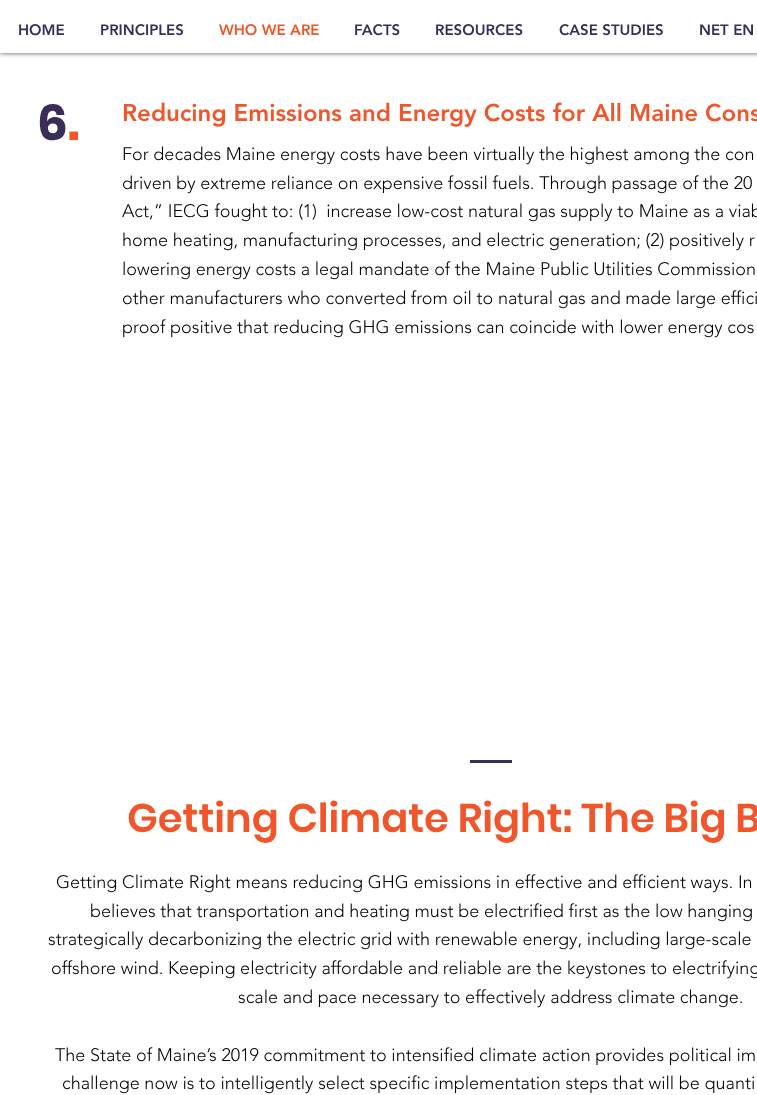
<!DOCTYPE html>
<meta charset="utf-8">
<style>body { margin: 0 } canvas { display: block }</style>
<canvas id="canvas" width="757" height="1095"></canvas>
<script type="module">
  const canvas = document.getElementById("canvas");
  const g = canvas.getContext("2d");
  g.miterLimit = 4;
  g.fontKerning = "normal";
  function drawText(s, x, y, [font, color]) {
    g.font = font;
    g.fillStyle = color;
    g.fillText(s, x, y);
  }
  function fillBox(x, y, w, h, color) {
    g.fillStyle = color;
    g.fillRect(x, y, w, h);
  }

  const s1 = ["900 15px 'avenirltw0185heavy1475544'", "#3A2E59"];
  const s2 = ["900 15px 'avenirltw0185heavy1475544'", "#F1562A"];
  const s3 = ["bold 49px Poppins", "#3A2E59"];
  const s4 = ["bold 49px Poppins", "#F1562A"];
  const s5 = ["900 24px 'avenirltw0185heavy1475544'", "#F1562A"];
  const s6 = ["300 18px 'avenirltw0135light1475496'", "#000000"];
  const s7 = ["600 40px Poppins", "#F1562A"];

  fillBox(0, 0, 757, 1095, "#FFFFFF");
  g.fillStyle = "rgba(0, 0, 0, 0.7)";
  g.filter = "blur(2.5px)";
  g.beginPath();
  g.rect(0, 0, 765, 53);
  g.fill();
  g.filter = "none";
  fillBox(0, 0, 757, 53, "#FFFFFF");
  drawText("HOME", 18, 35, s1);
  drawText("PRINCIPLES", 100, 35, s1);
  drawText("WHO WE ARE", 219, 35, s2);
  drawText("FACTS", 354, 35, s1);
  drawText("RESOURCES", 435, 35, s1);
  drawText("CASE STUDIES", 559, 35, s1);
  drawText("NET EN", 699, 35, s1);
  drawText("6", 37, 140, s3);
  drawText(".", 68, 140, s4);
  drawText("Reducing Emissions and Energy Costs for All Maine Cons", 122, 121, s5);
  drawText("For decades Maine energy costs have been virtually the highest among the con", 122, 160, s6);
  drawText("driven by extreme reliance on expensive fossil fuels. Through passage of the 20", 122, 189, s6);
  drawText("Act,” IECG fought to: (1)  increase low-cost natural gas supply to Maine as a viab", 122, 217, s6);
  drawText("home heating, manufacturing processes, and electric generation; (2) positively r", 122, 246, s6);
  drawText("lowering energy costs a legal mandate of the Maine Public Utilities Commission", 122, 275, s6);
  drawText("other manufacturers who converted from oil to natural gas and made large effici", 122, 304, s6);
  drawText("proof positive that reducing GHG emissions can coincide with lower energy cos", 122, 333, s6);
  fillBox(470, 760, 42, 3, "#3A2E59");
  drawText("Getting Climate Right: The Big B", 127, 832, s7);
  drawText("Getting Climate Right means reducing GHG emissions in effective and efficient ways. In", 56, 888, s6);
  drawText("believes that transportation and heating must be electrified first as the low hanging", 90, 917, s6);
  drawText("strategically decarbonizing the electric grid with renewable energy, including large-scale", 48, 945, s6);
  drawText("offshore wind. Keeping electricity affordable and reliable are the keystones to electrifying", 51, 974, s6);
  drawText("scale and pace necessary to effectively address climate change.", 238, 1003, s6);
  drawText("The State of Maine’s 2019 commitment to intensified climate action provides political im", 55, 1061, s6);
  drawText("challenge now is to intelligently select specific implementation steps that will be quanti", 62, 1089, s6);
</script>
